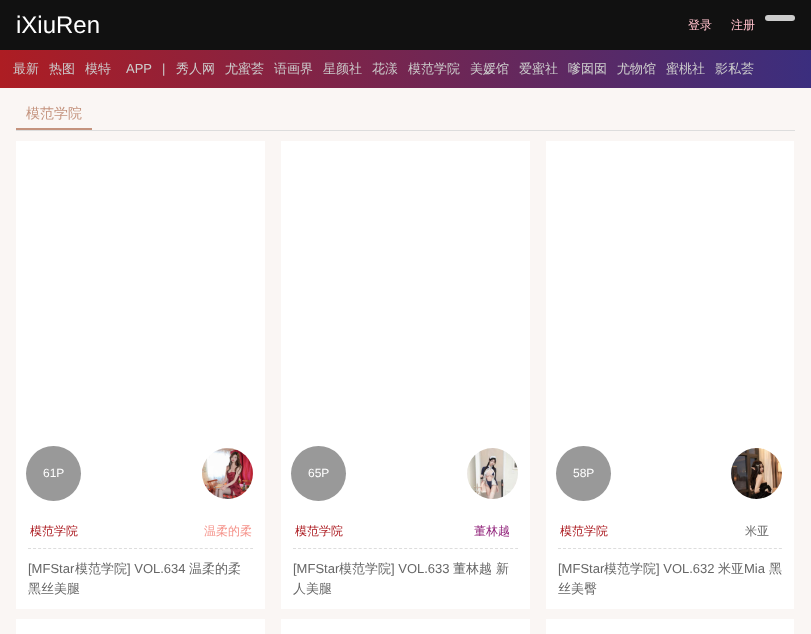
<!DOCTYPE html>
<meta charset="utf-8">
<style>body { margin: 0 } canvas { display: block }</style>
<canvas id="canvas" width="811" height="634"></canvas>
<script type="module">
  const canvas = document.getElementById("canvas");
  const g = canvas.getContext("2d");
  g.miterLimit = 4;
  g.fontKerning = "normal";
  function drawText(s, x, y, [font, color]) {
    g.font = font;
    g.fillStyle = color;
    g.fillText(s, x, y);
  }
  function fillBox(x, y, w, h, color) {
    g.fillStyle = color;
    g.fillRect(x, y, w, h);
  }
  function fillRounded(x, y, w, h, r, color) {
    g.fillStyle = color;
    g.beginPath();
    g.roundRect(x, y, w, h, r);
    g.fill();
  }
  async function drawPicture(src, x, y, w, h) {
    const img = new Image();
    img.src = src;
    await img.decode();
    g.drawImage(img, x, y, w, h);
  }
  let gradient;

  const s1 = ["24px Liberation Sans", "#FFFFFF"];
  const s2 = ["500 12px WenQuanYi Zen Hei", "#FFC0CB"];
  const s3 = ["500 13px WenQuanYi Zen Hei", "#CCCCCC"];
  const s4 = ["13px Liberation Sans", "#CCCCCC"];
  const s5 = ["500 14px WenQuanYi Zen Hei", "#C4937E"];
  const s6 = ["12px Liberation Sans", "#FFFFFF"];
  const s7 = ["500 12px WenQuanYi Zen Hei", "#AD1D23"];
  const s8 = ["500 12px WenQuanYi Zen Hei", "#F5928A"];
  const s9 = ["13px Liberation Sans", "#666666"];
  const s10 = ["500 13px WenQuanYi Zen Hei", "#666666"];
  const s11 = ["500 12px WenQuanYi Zen Hei", "#92257C"];
  const s12 = ["500 12px WenQuanYi Zen Hei", "#666666"];

  fillBox(0, 0, 811, 634, "#FAF6F4");
  fillBox(0, 0, 811, 50, "#111111");
  drawText("iXiuRen", 16, 33, s1);
  drawText("登录", 688, 29, s2);
  drawText("注册", 731, 29, s2);
  fillRounded(765, 15, 30, 6, 3, "#CCCCCC");
  gradient = g.createLinearGradient(0, 69, 811, 69);
  gradient.addColorStop(0, "#AD1D23");
  gradient.addColorStop(1, "#3B2E7E");
  g.fillStyle = gradient;
  g.fillRect(0, 50, 811, 38);
  drawText("最新", 13, 73, s3);
  drawText("热图", 49, 73, s3);
  drawText("模特", 85, 73, s3);
  drawText("APP", 126, 73, s4);
  drawText("|", 162, 73, s4);
  drawText("秀人网", 176, 73, s3);
  drawText("尤蜜荟", 225, 73, s3);
  drawText("语画界", 274, 73, s3);
  drawText("星颜社", 323, 73, s3);
  drawText("花漾", 372, 73, s3);
  drawText("模范学院", 408, 73, s3);
  drawText("美媛馆", 470, 73, s3);
  drawText("爱蜜社", 519, 73, s3);
  drawText("嗲囡囡", 568, 73, s3);
  drawText("尤物馆", 617, 73, s3);
  drawText("蜜桃社", 666, 73, s3);
  drawText("影私荟", 715, 73, s3);
  fillBox(16, 130, 779, 1, "#DDDDDD");
  fillBox(16, 128, 76, 2, "#C4937E");
  drawText("模范学院", 26, 118, s5);
  fillBox(16, 141, 249, 468, "#FFFFFF");
  g.fillStyle = "#999999";
  g.beginPath();
  g.arc(53.5, 473.5, 27.5, 0, Math.PI * 2);
  g.fill();
  drawText("61P", 43, 477, s6);
  await drawPicture("pic1.png", 202, 448, 51, 51);
  drawText("模范学院", 30, 535, s7);
  drawText("温柔的柔", 204, 535, s8);
  g.beginPath();
  g.moveTo(28, 548.5);
  g.lineTo(253, 548.5);
  g.strokeStyle = "#DDDDDD";
  g.setLineDash([3, 2.05]);
  g.stroke();
  drawText("[MFStar", 28, 573, s9);
  drawText("模范学院", 75, 573, s10);
  drawText("] VOL.634", 127, 573, s9);
  drawText("温柔的柔", 189, 573, s10);
  drawText("黑丝美腿", 28, 593, s10);
  fillBox(281, 141, 249, 468, "#FFFFFF");
  g.fillStyle = "#999999";
  g.beginPath();
  g.arc(318.5, 473.5, 27.5, 0, Math.PI * 2);
  g.fill();
  drawText("65P", 308, 477, s6);
  await drawPicture("pic2.png", 467, 448, 51, 51);
  drawText("模范学院", 295, 535, s7);
  drawText("董林越", 474, 535, s11);
  g.beginPath();
  g.moveTo(293, 548.5);
  g.lineTo(518, 548.5);
  g.stroke();
  drawText("[MFStar", 293, 573, s9);
  drawText("模范学院", 339, 573, s10);
  drawText("] VOL.633", 391, 573, s9);
  drawText("董林越 新", 453, 573, s10);
  drawText("人美腿", 293, 593, s10);
  fillBox(546, 141, 248, 468, "#FFFFFF");
  g.fillStyle = "#999999";
  g.beginPath();
  g.arc(583.5, 473.5, 27.5, 0, Math.PI * 2);
  g.fill();
  drawText("58P", 573, 477, s6);
  await drawPicture("pic3.png", 731, 448, 51, 51);
  drawText("模范学院", 560, 535, s7);
  drawText("米亚", 745, 535, s12);
  g.beginPath();
  g.moveTo(558, 548.5);
  g.lineTo(782, 548.5);
  g.setLineDash([3, 2.02]);
  g.stroke();
  drawText("[MFStar", 558, 573, s9);
  drawText("模范学院", 604, 573, s10);
  drawText("] VOL.632", 656, 573, s9);
  drawText("米亚", 718, 573, s10);
  drawText("Mia", 744, 573, s9);
  drawText("黑", 769, 573, s10);
  drawText("丝美臀", 558, 593, s10);
  fillBox(16, 619, 249, 15, "#FFFFFF");
  fillBox(281, 619, 249, 15, "#FFFFFF");
  fillBox(546, 619, 248, 15, "#FFFFFF");
</script>
